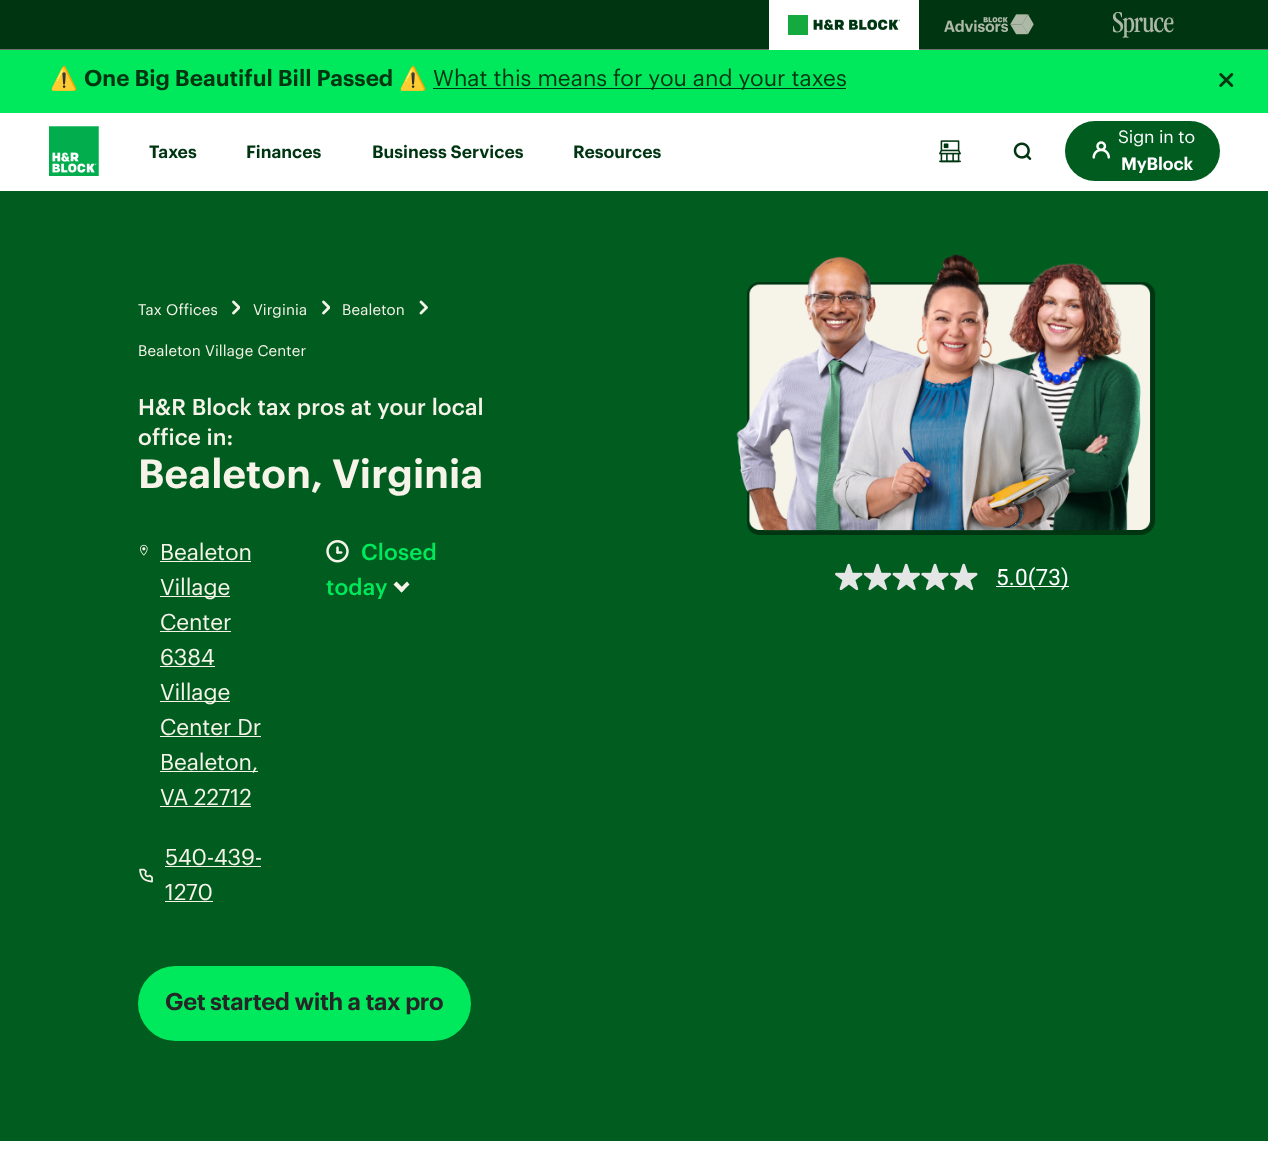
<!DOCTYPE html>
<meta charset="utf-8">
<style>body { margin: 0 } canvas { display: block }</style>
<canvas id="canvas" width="1268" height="1167"></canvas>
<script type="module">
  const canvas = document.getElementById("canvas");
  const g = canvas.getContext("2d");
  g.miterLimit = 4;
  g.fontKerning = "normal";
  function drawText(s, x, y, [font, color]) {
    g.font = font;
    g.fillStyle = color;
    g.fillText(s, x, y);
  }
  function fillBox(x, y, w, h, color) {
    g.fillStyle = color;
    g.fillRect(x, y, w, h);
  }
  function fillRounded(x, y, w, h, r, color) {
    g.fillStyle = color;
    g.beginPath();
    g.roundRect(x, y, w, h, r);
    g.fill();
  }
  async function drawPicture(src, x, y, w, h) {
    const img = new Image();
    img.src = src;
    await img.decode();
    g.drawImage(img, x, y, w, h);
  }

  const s1 = ["22.5px Noto Color Emoji", "#003512"];
  const s2 = ["600 22.5px Graphik", "#003512"];
  const s3 = ["22.5px Graphik", "#003512"];
  const s4 = ["600 17.5px Graphik", "#003512"];
  const s5 = ["17.5px Graphik", "#FFFFFF"];
  const s6 = ["600 17.5px Graphik", "#FFFFFF"];
  const s7 = ["15px Graphik", "#F6F4E9"];
  const s8 = ["500 22.5px Graphik", "#F6F4E9"];
  const s9 = ["600 40px Graphik", "#F6F4E9"];
  const s10 = ["22.5px Graphik", "#F6F4E9"];
  const s11 = ["500 22.5px Graphik", "#00E95C"];
  const s12 = ["600 23.75px Graphik", "#262626"];
  const s13 = ["22.5px Roboto", "#FFFFFF"];

  fillBox(0, 0, 1268, 1167, "#FFFFFF");
  fillBox(0, 0, 1268, 49, "#003512");
  fillBox(0, 49, 1268, 1, "#6E6E6E");
  fillBox(769, 0, 150, 50, "#FFFFFF");
  await drawPicture("pic1.png", 788, 15, 112, 20);
  await drawPicture("pic2.png", 944, 14, 90, 21);
  await drawPicture("pic3.png", 1113, 12, 61, 26);
  fillBox(0, 50, 1268, 63, "#00E95C");
  drawText("⚠️", 50, 86, s1);
  drawText("One Big Beautiful Bill Passed", 84, 86, s2);
  drawText("⚠️", 399, 86, s1);
  fillBox(433, 88, 413, 1, "#003512");
  drawText("What this means for you and your taxes", 433, 86, s3);
  await drawPicture("pic4.png", 1219, 73, 15, 14);
  await drawPicture("pic5.png", 49, 126, 50, 50);
  drawText("Taxes", 149, 158, s4);
  drawText("Finances", 246, 158, s4);
  drawText("Business Services", 372, 158, s4);
  drawText("Resources", 573, 158, s4);
  await drawPicture("pic6.png", 939, 140, 22, 23);
  await drawPicture("pic7.png", 1013, 142, 19, 18);
  fillRounded(1065, 121, 155, 60, 30, "#005D1F");
  await drawPicture("pic8.png", 1092, 141, 18, 18);
  g.letterSpacing = "-0.1px";
  drawText("Sign in to", 1118, 143, s5);
  drawText("MyBlock", 1121, 170, s6);
  fillBox(0, 191, 1268, 950, "#005D1F");
  g.letterSpacing = "0.15px";
  drawText("Tax Offices", 138, 315, s7);
  await drawPicture("pic9.png", 232, 300, 8, 15);
  drawText("Virginia", 253, 315, s7);
  await drawPicture("pic9.png", 322, 300, 8, 15);
  drawText("Bealeton", 342, 315, s7);
  await drawPicture("pic10.png", 419, 300, 9, 15);
  drawText("Bealeton Village Center", 138, 356, s7);
  drawText("H&R Block tax pros at your local", 138, 415, s8);
  drawText("office in:", 138, 445, s8);
  drawText("Bealeton, Virginia", 138, 488, s9);
  await drawPicture("pic11.png", 140, 544, 8, 12);
  g.letterSpacing = "-0.1px";
  drawText("Bealeton", 160, 560, s10);
  fillBox(160, 561, 91, 1, "#F6F4E9");
  fillBox(160, 596, 70, 1, "#F6F4E9");
  drawText("Village", 160, 595, s10);
  drawText("Center", 160, 630, s10);
  fillBox(160, 631, 71, 1, "#F6F4E9");
  drawText("6384", 160, 665, s10);
  fillBox(160, 666, 55, 1, "#F6F4E9");
  fillBox(160, 701, 70, 1, "#F6F4E9");
  drawText("Village", 160, 700, s10);
  drawText("Center Dr", 160, 735, s10);
  fillBox(160, 736, 101, 1, "#F6F4E9");
  fillBox(160, 771, 98, 1, "#F6F4E9");
  drawText("Bealeton,", 160, 770, s10);
  drawText("VA 22712", 160, 805, s10);
  fillBox(160, 806, 91, 1, "#F6F4E9");
  await drawPicture("pic12.png", 139, 868, 14, 15);
  drawText("540-439-", 165, 865, s10);
  fillBox(165, 866, 96, 1, "#F6F4E9");
  drawText("1270", 165, 900, s10);
  fillBox(165, 901, 48, 1, "#F6F4E9");
  await drawPicture("pic13.png", 326, 540, 23, 23);
  g.letterSpacing = "0.15px";
  drawText("Closed", 361, 560, s11);
  drawText("today", 326, 595, s11);
  g.fillStyle = "#F6F4E9";
  g.beginPath();
  g.moveTo(407, 581.5);
  g.lineTo(409.5, 584.5);
  g.lineTo(401.5, 592.5);
  g.lineTo(399, 589.5);
  g.closePath();
  g.fill();
  g.beginPath();
  g.moveTo(396.5, 581.5);
  g.lineTo(404.5, 589.5);
  g.lineTo(401.5, 592.5);
  g.lineTo(393.5, 584.5);
  g.closePath();
  g.fill();
  fillRounded(138, 966, 333, 75, 37.5, "#00E95C");
  g.letterSpacing = "-0.4px";
  drawText("Get started with a tax pro", 165, 1010, s12);
  await drawPicture("pic14.png", 736, 254, 420, 281);
  await drawPicture("pic15.png", 835, 563, 28, 28);
  await drawPicture("pic16.png", 863, 563, 29, 28);
  await drawPicture("pic17.png", 892, 563, 28, 28);
  await drawPicture("pic18.png", 921, 563, 28, 28);
  await drawPicture("pic15.png", 950, 563, 28, 28);
  fillBox(996, 586, 73, 1, "#FFFFFF");
  g.letterSpacing = "0.15px";
  drawText("5.0(73)", 996, 585, s13);
</script>
